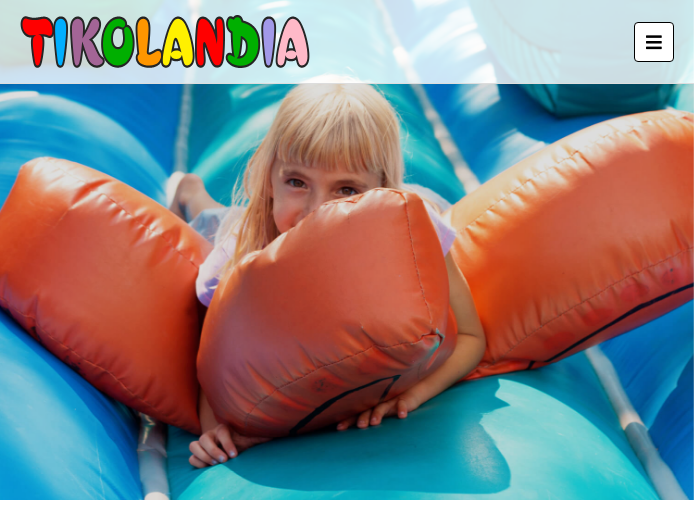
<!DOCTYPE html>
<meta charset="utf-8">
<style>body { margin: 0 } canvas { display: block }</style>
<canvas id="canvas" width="694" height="525"></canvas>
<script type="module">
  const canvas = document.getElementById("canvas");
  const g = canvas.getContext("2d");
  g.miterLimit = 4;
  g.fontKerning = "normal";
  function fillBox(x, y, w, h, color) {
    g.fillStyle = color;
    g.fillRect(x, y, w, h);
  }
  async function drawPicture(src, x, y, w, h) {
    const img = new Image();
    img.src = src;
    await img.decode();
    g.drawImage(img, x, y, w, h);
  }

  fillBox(0, 0, 694, 525, "#FFFFFF");
  await drawPicture("pic1.png", 0, 0, 694, 500);
  fillBox(0, 84, 694, 416, "rgba(0, 0, 0, 0.1)");
  fillBox(0, 0, 694, 83, "rgba(255, 255, 255, 0.8)");
  fillBox(0, 83, 694, 1, "#DDDDDD");
  await drawPicture("pic2.png", 20, 15, 290, 53);
  g.fillStyle = "#FFFFFF";
  g.beginPath();
  g.roundRect(634.5, 22.5, 39, 39, 3.5);
  g.fill();
  g.strokeStyle = "#000000";
  g.stroke();
  await drawPicture("pic3.png", 646, 35, 16, 15);
</script>
